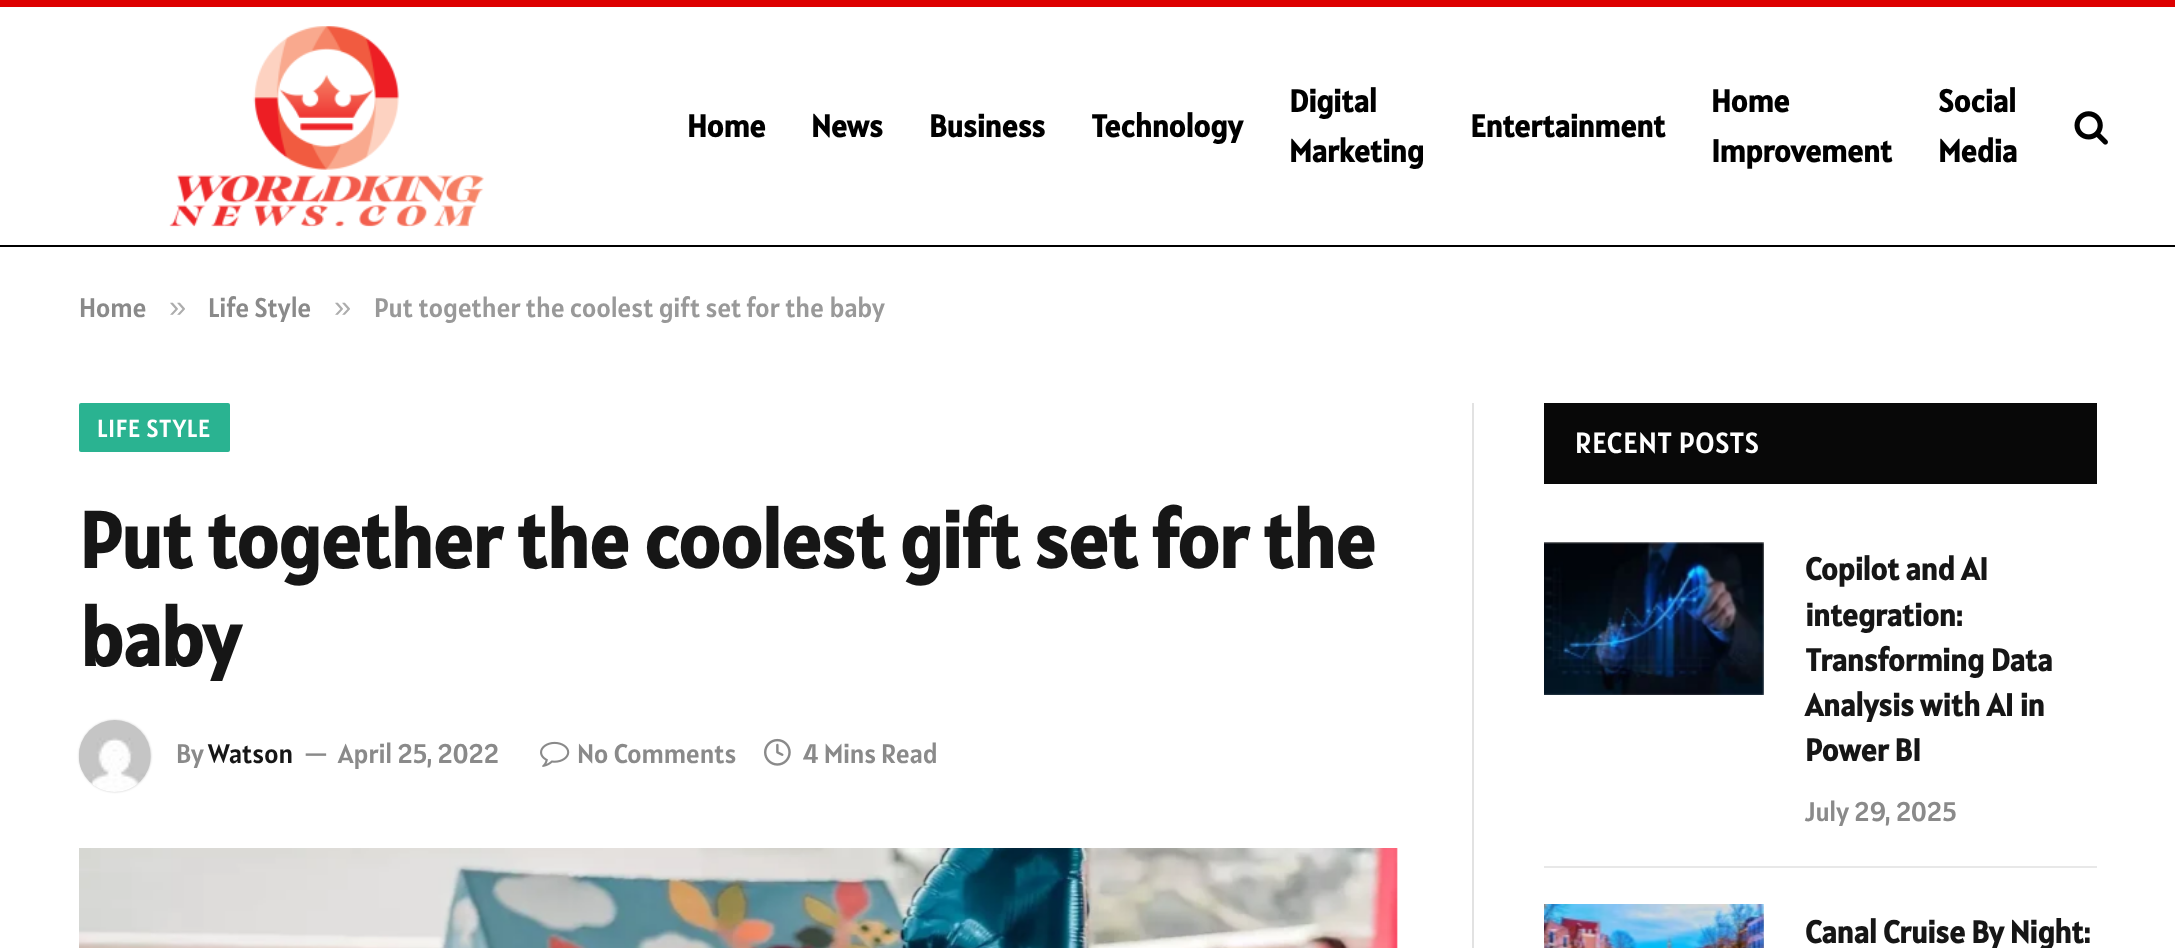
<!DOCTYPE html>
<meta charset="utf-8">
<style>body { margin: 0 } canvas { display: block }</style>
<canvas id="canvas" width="2175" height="948"></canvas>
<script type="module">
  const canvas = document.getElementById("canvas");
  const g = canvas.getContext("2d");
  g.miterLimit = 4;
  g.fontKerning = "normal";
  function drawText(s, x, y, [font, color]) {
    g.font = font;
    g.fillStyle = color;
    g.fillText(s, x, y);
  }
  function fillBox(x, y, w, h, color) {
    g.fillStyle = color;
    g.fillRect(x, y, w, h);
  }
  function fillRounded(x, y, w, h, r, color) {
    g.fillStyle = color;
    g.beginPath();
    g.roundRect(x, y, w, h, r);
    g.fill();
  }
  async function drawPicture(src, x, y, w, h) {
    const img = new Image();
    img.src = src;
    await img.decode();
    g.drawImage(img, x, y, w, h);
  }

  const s1 = ["bold 31.5px Alatsi", "#000000"];
  const s2 = ["27px Alatsi", "#8A8A8A"];
  const s3 = ["31px Liberation Sans", "#ADADAD"];
  const s4 = ["27px Alatsi", "#999999"];
  const s5 = ["24.75px Alatsi", "#FFFFFF"];
  const s6 = ["bold 78.75px Alatsi", "#161616"];
  const s7 = ["27px Alatsi", "#161616"];
  const s8 = ["25px Alatsi", "#8A8A8A"];
  const s9 = ["29.25px Alatsi", "#FFFFFF"];
  const s10 = ["bold 31.5px Alatsi", "#161616"];

  fillBox(0, 0, 2175, 948, "#FFFFFF");
  fillBox(0, 0, 2175, 7, "#DD0000");
  fillBox(0, 245, 2175, 2, "#000000");
  await drawPicture("pic1.png", 169, 26, 315, 201);
  drawText("Home", 687, 137, s1);
  drawText("News", 811, 137, s1);
  drawText("Business", 929, 137, s1);
  drawText("Technology", 1091, 137, s1);
  drawText("Digital", 1289, 112, s1);
  drawText("Marketing", 1289, 162, s1);
  drawText("Entertainment", 1470, 137, s1);
  drawText("Home", 1711, 112, s1);
  drawText("Improvement", 1711, 162, s1);
  drawText("Social", 1938, 112, s1);
  drawText("Media", 1938, 162, s1);
  await drawPicture("pic2.png", 2074, 111, 34, 34);
  drawText("Home", 79, 317, s2);
  drawText("»", 169, 317, s3);
  drawText("Life Style", 208, 317, s2);
  drawText("»", 334, 317, s3);
  drawText("Put together the coolest gift set for the baby", 374, 317, s4);
  fillRounded(79, 403, 151, 49, 2, "#2AB391");
  g.letterSpacing = "0.75px";
  drawText("LIFE STYLE", 97, 437, s5);
  g.letterSpacing = "-0.4px";
  drawText("Put together the coolest gift set for the", 79, 568, s6);
  drawText("baby", 79, 666, s6);
  g.fillStyle = "rgba(0, 0, 0, 0.2)";
  g.filter = "blur(1px)";
  g.beginPath();
  g.roundRect(79, 720, 72, 72, 36);
  g.fill();
  g.filter = "none";
  await drawPicture("pic3.png", 79, 720, 72, 72);
  g.letterSpacing = "0px";
  drawText("By", 176, 763, s2);
  drawText("Watson", 208, 763, s7);
  drawText("—", 304, 762, s8);
  drawText("April 25, 2022", 338, 763, s2);
  await drawPicture("pic4.png", 540, 741, 30, 26);
  drawText("No Comments", 577, 763, s2);
  await drawPicture("pic5.png", 764, 738, 27, 28);
  drawText("4 Mins Read", 802, 763, s2);
  await drawPicture("pic6.png", 79, 848, 1319, 100);
  fillBox(1472, 403, 2, 545, "#E2E2E2");
  fillBox(1544, 403, 553, 81, "#080808");
  g.letterSpacing = "0.5px";
  drawText("RECENT POSTS", 1575, 453, s9);
  await drawPicture("pic7.png", 1544, 542, 220, 153);
  g.letterSpacing = "0px";
  drawText("Copilot and AI", 1805, 580, s10);
  drawText("integration:", 1805, 626, s10);
  drawText("Transforming Data", 1805, 671, s10);
  drawText("Analysis with AI in", 1805, 716, s10);
  drawText("Power BI", 1805, 761, s10);
  drawText("July 29, 2025", 1805, 821, s2);
  fillBox(1544, 866, 553, 2, "#E8E8E8");
  await drawPicture("pic8.png", 1544, 904, 220, 44);
  drawText("Canal Cruise By Night:", 1805, 943, s10);
</script>
